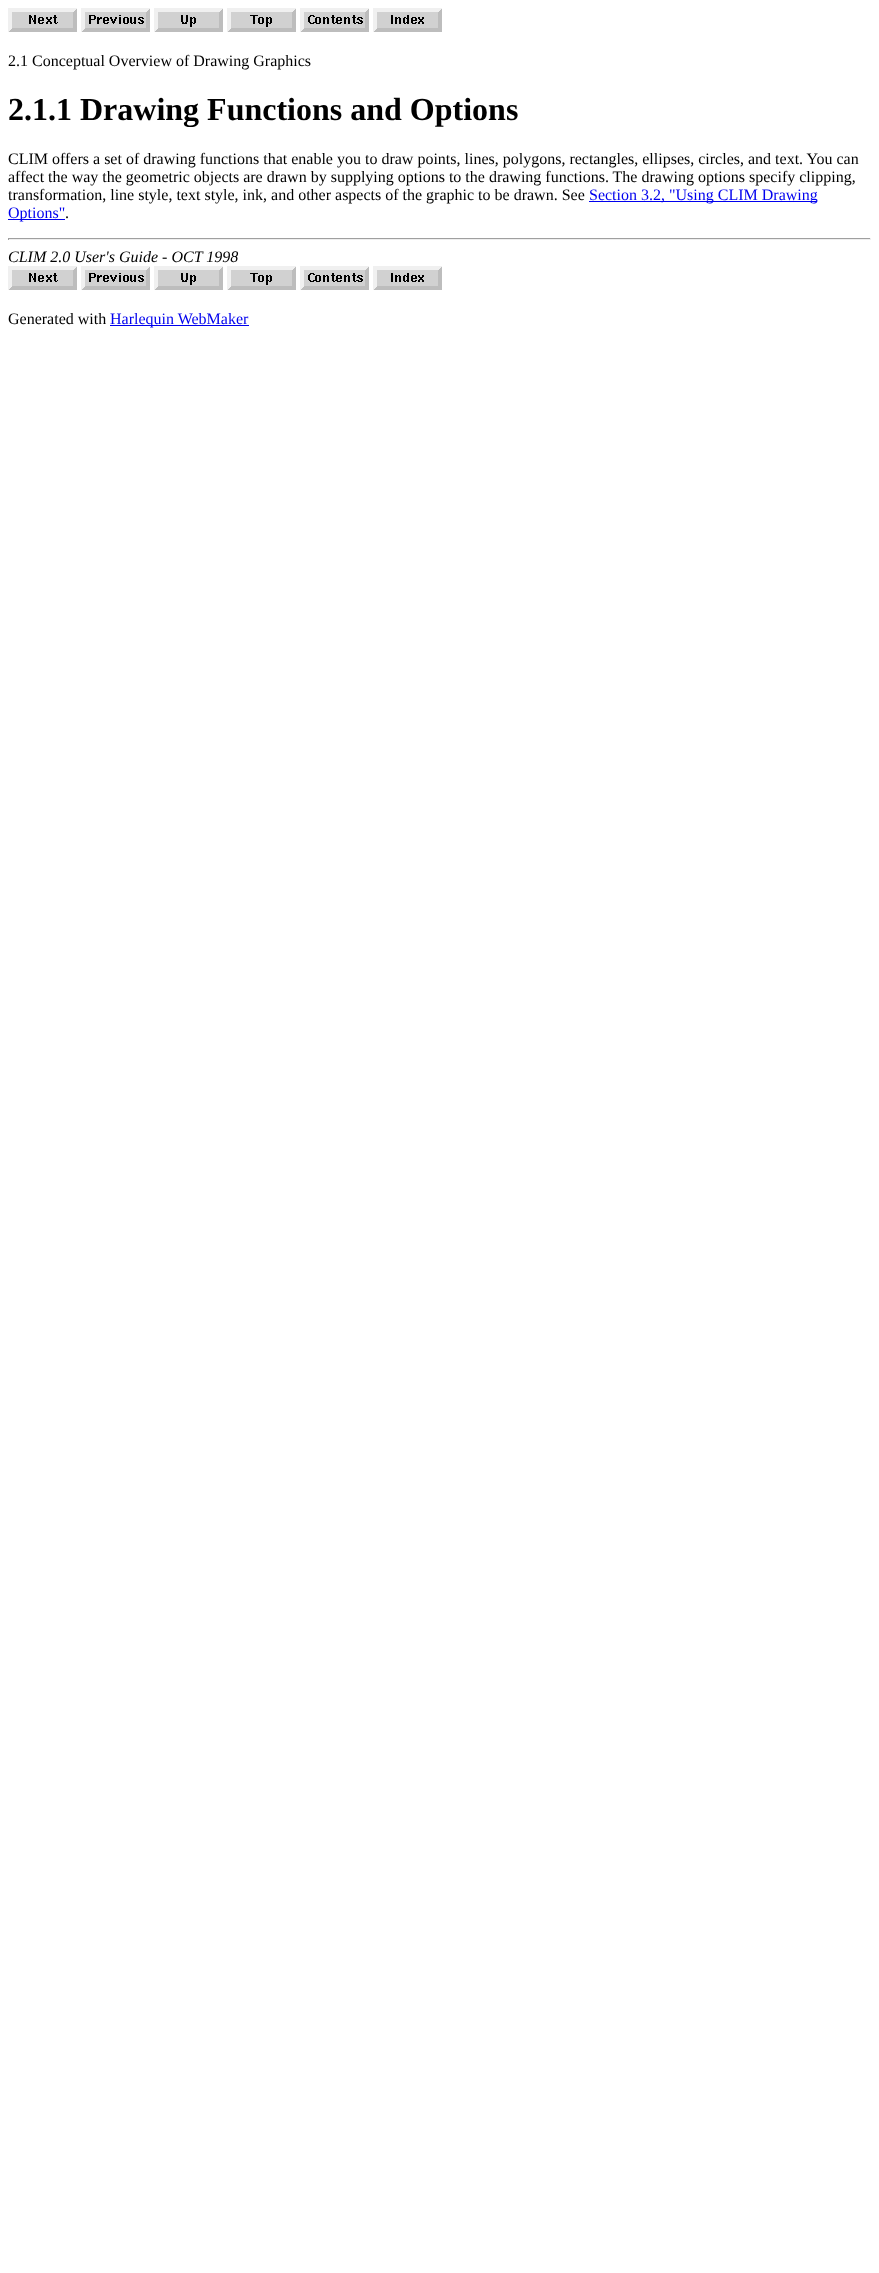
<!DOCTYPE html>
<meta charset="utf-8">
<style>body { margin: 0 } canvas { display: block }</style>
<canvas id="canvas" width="879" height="2273"></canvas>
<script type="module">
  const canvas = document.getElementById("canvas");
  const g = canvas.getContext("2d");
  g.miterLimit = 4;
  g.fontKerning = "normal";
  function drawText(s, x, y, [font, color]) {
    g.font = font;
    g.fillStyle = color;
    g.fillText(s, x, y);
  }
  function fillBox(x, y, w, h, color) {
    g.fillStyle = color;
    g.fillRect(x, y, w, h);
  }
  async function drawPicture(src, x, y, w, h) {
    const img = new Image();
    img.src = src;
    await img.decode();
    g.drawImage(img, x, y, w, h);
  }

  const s1 = ["16px Liberation Serif", "#000000"];
  const s2 = ["bold 32px Liberation Serif", "#000000"];
  const s3 = ["16px Liberation Serif", "#0000EE"];
  const s4 = ["italic 16px Liberation Serif", "#000000"];

  fillBox(0, 0, 879, 2273, "#FFFFFF");
  await drawPicture("pic1.png", 8, 8, 69, 24);
  await drawPicture("pic2.png", 81, 8, 69, 24);
  await drawPicture("pic3.png", 154, 8, 69, 24);
  await drawPicture("pic4.png", 227, 8, 69, 24);
  await drawPicture("pic5.png", 300, 8, 69, 24);
  await drawPicture("pic6.png", 373, 8, 69, 24);
  drawText("2.1 Conceptual Overview of Drawing Graphics", 8, 66, s1);
  drawText("2.1.1 Drawing Functions and Options", 8, 120, s2);
  drawText("CLIM offers a set of drawing functions that enable you to draw points, lines, polygons, rectangles, ellipses, circles, and text. You can", 8, 164, s1);
  drawText("affect the way the geometric objects are drawn by supplying options to the drawing functions. The drawing options specify clipping,", 8, 182, s1);
  drawText("transformation, line style, text style, ink, and other aspects of the graphic to be drawn. See", 8, 200, s1);
  fillBox(589, 201, 228, 1, "#0000EE");
  drawText("Section 3.2, \"Using CLIM Drawing", 589, 200, s3);
  fillBox(8, 219, 57, 1, "#0000EE");
  drawText("Options\"", 8, 218, s3);
  drawText(".", 65, 218, s1);
  fillBox(8, 238, 863, 1, "#9F9F9F");
  fillBox(870, 238, 1, 2, "#EEEEEE");
  fillBox(8, 239, 863, 1, "#EEEEEE");
  fillBox(8, 238, 1, 2, "#9F9F9F");
  drawText("CLIM 2.0 User's Guide - OCT 1998", 8, 262, s4);
  await drawPicture("pic1.png", 8, 266, 69, 24);
  await drawPicture("pic2.png", 81, 266, 69, 24);
  await drawPicture("pic3.png", 154, 266, 69, 24);
  await drawPicture("pic4.png", 227, 266, 69, 24);
  await drawPicture("pic5.png", 300, 266, 69, 24);
  await drawPicture("pic6.png", 373, 266, 69, 24);
  drawText("Generated with", 8, 324, s1);
  fillBox(110, 325, 139, 1, "#0000EE");
  drawText("Harlequin WebMaker", 110, 324, s3);
</script>
